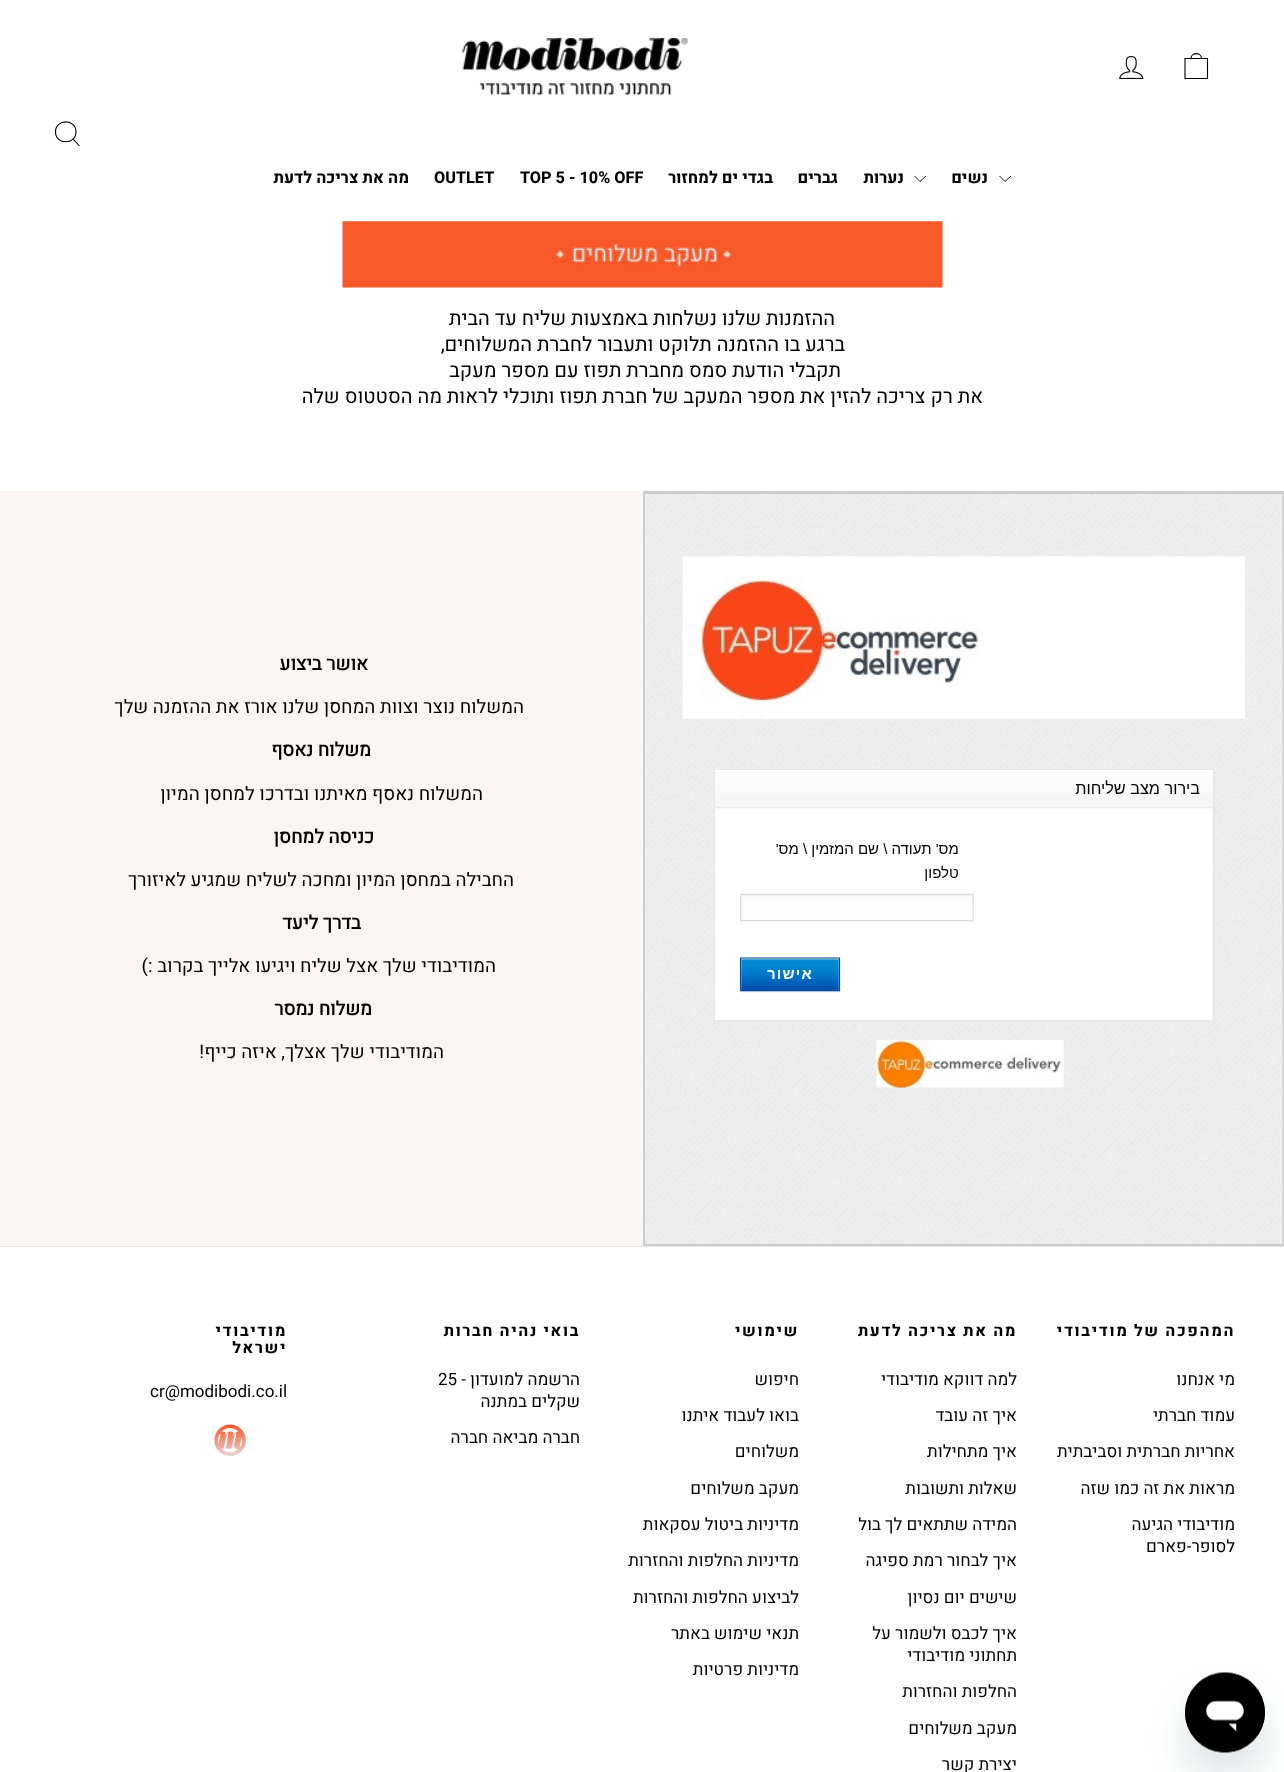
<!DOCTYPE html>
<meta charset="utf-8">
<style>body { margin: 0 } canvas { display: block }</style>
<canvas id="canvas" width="1284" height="1772"></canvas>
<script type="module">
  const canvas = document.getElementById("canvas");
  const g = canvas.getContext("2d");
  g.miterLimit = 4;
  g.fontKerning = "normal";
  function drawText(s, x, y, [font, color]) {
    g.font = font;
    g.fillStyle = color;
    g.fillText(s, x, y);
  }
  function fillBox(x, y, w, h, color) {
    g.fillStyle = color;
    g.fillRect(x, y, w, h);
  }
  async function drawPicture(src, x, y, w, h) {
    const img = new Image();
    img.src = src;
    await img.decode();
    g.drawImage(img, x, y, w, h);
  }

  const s1 = ["bold 16.25px Heebo", "#000000"];
  const s2 = ["20px Heebo", "#000000"];
  const s3 = ["bold 18.75px 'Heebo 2'", "#000000"];
  const s4 = ["18.75px Heebo", "#000000"];
  const s5 = ["bold 16px Heebo", "#000000"];
  const s6 = ["17px Heebo", "#000000"];

  fillBox(0, 0, 1284, 1772, "#FFFFFF");
  g.beginPath();
  g.moveTo(1185, 58.5);
  g.lineTo(1207.5, 58.5);
  g.lineTo(1207.5, 78.5);
  g.lineTo(1185, 78.5);
  g.closePath();
  g.moveTo(1191, 58.5);
  g.bezierCurveTo(1191, 52, 1201.5, 52, 1201.5, 58.5);
  g.strokeStyle = "#000000";
  g.lineWidth = 1.1;
  g.stroke();
  await drawPicture("pic1.png", 1119, 56, 25, 23);
  await drawPicture("pic2.png", 462, 38, 226, 57);
  g.beginPath();
  g.moveTo(76, 132);
  g.bezierCurveTo(76, 145, 55.5, 145, 55.5, 132);
  g.bezierCurveTo(55.5, 118.5, 76, 118.5, 76, 132);
  g.closePath();
  g.moveTo(79.5, 146);
  g.lineTo(73, 139);
  g.stroke();
  g.beginPath();
  g.moveTo(999.5, 176);
  g.lineTo(1005, 181.5);
  g.lineTo(1011, 176);
  g.lineWidth = 0.9;
  g.stroke();
  g.direction = "rtl";
  drawText("נשים", 988, 183, s1);
  g.beginPath();
  g.moveTo(914.5, 176);
  g.lineTo(920, 181.5);
  g.lineTo(926, 176);
  g.stroke();
  drawText("נערות", 904, 183, s1);
  drawText("גברים", 838, 183, s1);
  drawText("בגדי ים למחזור", 773, 183, s1);
  g.direction = "ltr";
  drawText("TOP 5 - 10% OFF", 520, 183, s1);
  drawText("OUTLET", 434, 183, s1);
  g.direction = "rtl";
  drawText("מה את צריכה לדעת", 409, 183, s1);
  await drawPicture("pic3.png", 342, 221, 601, 67);
  drawText("ההזמנות שלנו נשלחות באמצעות שליח עד הבית", 835, 325, s2);
  drawText("ברגע בו ההזמנה תלוקט ותעבור לחברת המשלוחים,", 845, 351, s2);
  drawText("תקבלי הודעת סמס מחברת תפוז עם מספר מעקב", 841, 377, s2);
  drawText("את רק צריכה להזין את מספר המעקב של חברת תפוז ותוכלי לראות מה הסטטוס שלה", 983, 403, s2);
  g.strokeStyle = "#CCCCCC";
  g.lineWidth = 3;
  g.strokeRect(644.5, 492.5, 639, 752);
  await drawPicture("pic4.png", 645, 494, 638, 750);
  fillBox(0, 491, 643, 755, "#FBF6F3");
  drawText("אושר ביצוע", 368, 670, s3);
  drawText("המשלוח נוצר וצוות המחסן שלנו אורז את ההזמנה שלך", 524, 713, s4);
  drawText("משלוח נאסף", 371, 756, s3);
  drawText("המשלוח נאסף מאיתנו ובדרכו למחסן המיון", 483, 800, s4);
  drawText("כניסה למחסן", 374, 843, s3);
  drawText("החבילה במחסן המיון ומחכה לשליח שמגיע לאיזורך", 514, 886, s4);
  drawText("בדרך ליעד", 361, 929, s3);
  drawText("המודיבודי שלך אצל שליח ויגיעו אלייך בקרוב :)", 496, 972, s4);
  drawText("משלוח נמסר", 372, 1015, s3);
  drawText("המודיבודי שלך אצלך, איזה כייף!", 444, 1058, s4);
  fillBox(0, 1246, 1284, 1, "#E8E8E1");
  g.letterSpacing = "1.6px";
  drawText("המהפכה של מודיבודי", 1235, 1336, s5);
  g.letterSpacing = "0px";
  drawText("מי אנחנו", 1235, 1385, s6);
  drawText("עמוד חברתי", 1235, 1421, s6);
  drawText("אחריות חברתית וסביבתית", 1235, 1457, s6);
  drawText("מראות את זה כמו שזה", 1235, 1494, s6);
  drawText("מודיבודי הגיעה", 1235, 1530, s6);
  drawText("לסופר-פארם", 1235, 1552, s6);
  g.letterSpacing = "1.6px";
  drawText("מה את צריכה לדעת", 1017, 1336, s5);
  g.letterSpacing = "0px";
  drawText("למה דווקא מודיבודי", 1017, 1385, s6);
  drawText("איך זה עובד", 1017, 1421, s6);
  drawText("איך מתחילות", 1017, 1457, s6);
  drawText("שאלות ותשובות", 1017, 1494, s6);
  drawText("המידה שתתאים לך בול", 1017, 1530, s6);
  drawText("איך לבחור רמת ספיגה", 1017, 1566, s6);
  drawText("שישים יום נסיון", 1017, 1603, s6);
  drawText("איך לכבס ולשמור על", 1017, 1639, s6);
  drawText("תחתוני מודיבודי", 1017, 1661, s6);
  drawText("החלפות והחזרות", 1017, 1697, s6);
  drawText("מעקב משלוחים", 1017, 1734, s6);
  drawText("יצירת קשר", 1017, 1770, s6);
  g.letterSpacing = "1.6px";
  drawText("שימושי", 799, 1336, s5);
  g.letterSpacing = "0px";
  drawText("חיפוש", 799, 1385, s6);
  drawText("בואו לעבוד איתנו", 799, 1421, s6);
  drawText("משלוחים", 799, 1457, s6);
  drawText("מעקב משלוחים", 799, 1494, s6);
  drawText("מדיניות ביטול עסקאות", 799, 1530, s6);
  drawText("מדיניות החלפות והחזרות", 799, 1566, s6);
  drawText("לביצוע החלפות והחזרות", 799, 1603, s6);
  drawText("תנאי שימוש באתר", 799, 1639, s6);
  drawText("מדיניות פרטיות", 799, 1675, s6);
  g.letterSpacing = "1.6px";
  drawText("בואי נהיה חברות", 580, 1336, s5);
  g.letterSpacing = "0px";
  drawText("הרשמה למועדון -", 580, 1385, s6);
  g.direction = "ltr";
  drawText("25", 438, 1385, s6);
  g.direction = "rtl";
  drawText("שקלים במתנה", 580, 1407, s6);
  drawText("חברה מביאה חברה", 580, 1443, s6);
  g.letterSpacing = "1.6px";
  drawText("מודיבודי", 287, 1336, s5);
  drawText("ישראל", 287, 1353, s5);
  g.letterSpacing = "0px";
  g.direction = "ltr";
  drawText("cr@modibodi.co.il", 150, 1397, s6);
  await drawPicture("pic5.png", 214, 1424, 32, 32);
  g.fillStyle = "rgba(23, 73, 77, 0.15)";
  g.filter = "blur(19px)";
  g.beginPath();
  g.roundRect(1185, 1698, 80, 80, 40);
  g.fill();
  g.filter = "none";
  await drawPicture("pic6.png", 1185, 1672, 80, 81);
</script>
